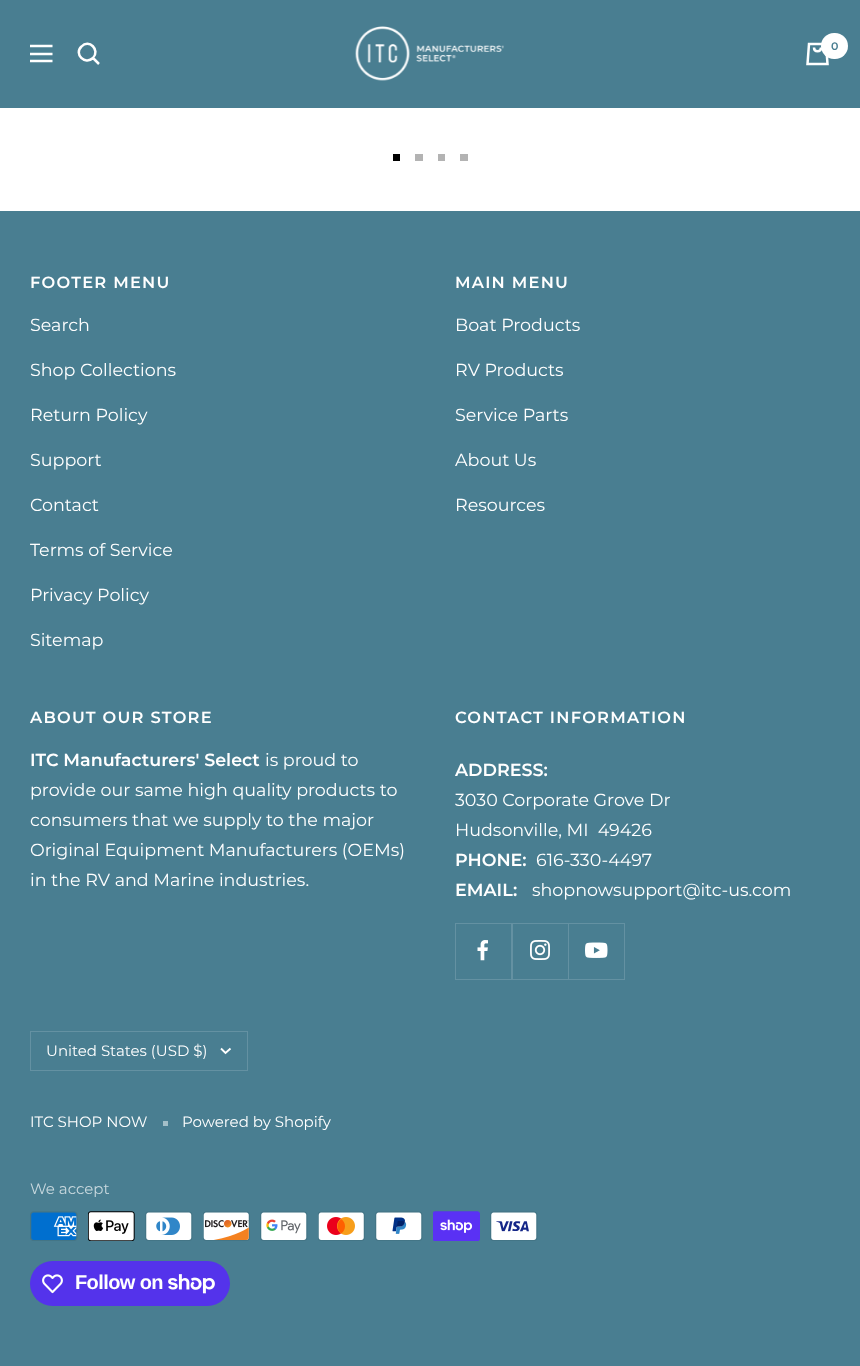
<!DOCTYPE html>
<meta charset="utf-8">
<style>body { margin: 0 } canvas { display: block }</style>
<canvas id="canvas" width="860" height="1366"></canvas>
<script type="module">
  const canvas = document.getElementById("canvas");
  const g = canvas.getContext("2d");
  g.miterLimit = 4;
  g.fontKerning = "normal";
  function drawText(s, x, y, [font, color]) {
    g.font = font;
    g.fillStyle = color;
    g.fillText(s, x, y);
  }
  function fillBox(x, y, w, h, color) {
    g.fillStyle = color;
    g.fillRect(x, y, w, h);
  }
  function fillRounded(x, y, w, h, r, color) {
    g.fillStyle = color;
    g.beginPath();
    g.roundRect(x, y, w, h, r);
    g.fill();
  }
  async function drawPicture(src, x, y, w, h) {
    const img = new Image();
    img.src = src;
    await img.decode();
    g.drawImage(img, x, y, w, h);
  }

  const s1 = ["600 11px Montserrat", "#497E91"];
  const s2 = ["600 16.25px Montserrat", "#FFFFFF"];
  const s3 = ["17.5px Montserrat", "#FFFFFF"];
  const s4 = ["600 17.5px Montserrat", "#FFFFFF"];
  const s5 = ["15px Montserrat", "#FFFFFF"];
  const s6 = ["15px Montserrat", "#C8D8DE"];
  const s7 = ["bold 20px Liberation Sans", "#FFFFFF"];

  fillBox(0, 0, 860, 1366, "#FFFFFF");
  fillBox(0, 0, 860, 108, "#497E91");
  g.beginPath();
  g.moveTo(30, 46);
  g.lineTo(52.5, 46);
  g.moveTo(30, 61);
  g.lineTo(52.5, 61);
  g.closePath();
  g.moveTo(30, 54);
  g.lineTo(52.5, 54);
  g.closePath();
  g.strokeStyle = "#FFFFFF";
  g.lineWidth = 2.5;
  g.stroke();
  g.beginPath();
  g.moveTo(93, 58);
  g.bezierCurveTo(100.5, 50, 89, 38.5, 81.5, 46.5);
  g.bezierCurveTo(73.5, 54, 85, 65.5, 93, 58);
  g.closePath();
  g.moveTo(93, 58);
  g.lineTo(99, 64);
  g.stroke();
  await drawPicture("pic1.png", 355, 26, 149, 55);
  g.beginPath();
  g.moveTo(809, 44);
  g.lineTo(826, 44);
  g.lineTo(827.5, 64);
  g.lineTo(807.5, 64);
  g.closePath();
  g.moveTo(814, 47.5);
  g.bezierCurveTo(814, 52.5, 821, 52.5, 821, 47.5);
  g.stroke();
  fillRounded(821, 33, 27, 26, 13, "#FFFFFF");
  drawText("0", 831, 50, s1);
  fillBox(393, 154, 7, 7, "#000000");
  fillBox(415, 154, 8, 7, "#B3B3B3");
  fillBox(438, 154, 7, 7, "#B3B3B3");
  fillBox(460, 154, 8, 7, "#B3B3B3");
  fillBox(0, 211, 860, 1155, "#497E91");
  g.letterSpacing = "1.25px";
  drawText("FOOTER MENU", 30, 288, s2);
  g.letterSpacing = "0px";
  drawText("Search", 30, 331, s3);
  drawText("Shop Collections", 30, 376, s3);
  drawText("Return Policy", 30, 421, s3);
  drawText("Support", 30, 466, s3);
  drawText("Contact", 30, 511, s3);
  drawText("Terms of Service", 30, 556, s3);
  drawText("Privacy Policy", 30, 601, s3);
  drawText("Sitemap", 30, 646, s3);
  g.letterSpacing = "1.25px";
  drawText("MAIN MENU", 455, 288, s2);
  g.letterSpacing = "0px";
  drawText("Boat Products", 455, 331, s3);
  drawText("RV Products", 455, 376, s3);
  drawText("Service Parts", 455, 421, s3);
  drawText("About Us", 455, 466, s3);
  drawText("Resources", 455, 511, s3);
  g.letterSpacing = "1.25px";
  drawText("ABOUT OUR STORE", 30, 723, s2);
  g.letterSpacing = "0px";
  drawText("ITC Manufacturers' Select", 30, 766, s4);
  drawText("is proud to", 265, 766, s3);
  drawText("provide our same high quality products to", 30, 796, s3);
  drawText("consumers that we supply to the major", 30, 826, s3);
  drawText("Original Equipment Manufacturers (OEMs)", 30, 856, s3);
  drawText("in the RV and Marine industries.", 30, 886, s3);
  g.letterSpacing = "1.25px";
  drawText("CONTACT INFORMATION", 455, 723, s2);
  g.letterSpacing = "0px";
  drawText("ADDRESS:", 455, 776, s4);
  drawText("3030 Corporate Grove Dr", 455, 806, s3);
  drawText("Hudsonville, MI  49426", 455, 836, s3);
  drawText("PHONE:", 455, 866, s4);
  drawText("616-330-4497", 536, 866, s3);
  drawText("EMAIL:", 455, 896, s4);
  drawText("shopnowsupport@itc-us.com", 532, 896, s3);
  g.fillStyle = "#6491A2";
  g.beginPath();
  g.moveTo(456, 979);
  g.lineTo(456, 980);
  g.lineTo(513, 980);
  g.lineTo(513, 924);
  g.lineTo(511, 924);
  g.lineTo(511, 979);
  g.closePath();
  g.fill();
  fillBox(455, 979, 1, 1, "#6491A2");
  g.beginPath();
  g.moveTo(456, 979);
  g.lineTo(513, 979);
  g.lineTo(513, 923);
  g.lineTo(511, 923);
  g.lineTo(511, 979);
  g.closePath();
  g.fill();
  fillBox(455, 923, 113, 1, "#6491A2");
  fillBox(455, 923, 1, 56, "#6491A2");
  await drawPicture("pic2.png", 477, 940, 11, 21);
  g.beginPath();
  g.moveTo(513, 979);
  g.lineTo(513, 980);
  g.lineTo(569, 980);
  g.lineTo(569, 924);
  g.lineTo(568, 924);
  g.lineTo(568, 979);
  g.closePath();
  g.fill();
  g.beginPath();
  g.moveTo(513, 979);
  g.lineTo(569, 979);
  g.lineTo(569, 923);
  g.lineTo(568, 923);
  g.lineTo(568, 979);
  g.closePath();
  g.fill();
  await drawPicture("pic3.png", 530, 940, 20, 20);
  g.beginPath();
  g.moveTo(569, 979);
  g.lineTo(569, 980);
  g.lineTo(625, 980);
  g.lineTo(625, 924);
  g.lineTo(624, 924);
  g.lineTo(624, 979);
  g.closePath();
  g.fill();
  g.beginPath();
  g.moveTo(569, 979);
  g.lineTo(625, 979);
  g.lineTo(625, 923);
  g.lineTo(624, 923);
  g.lineTo(624, 979);
  g.closePath();
  g.fill();
  fillBox(568, 923, 56, 1, "#6491A2");
  await drawPicture("pic4.png", 585, 942, 23, 16);
  g.strokeStyle = "#6491A2";
  g.lineWidth = 1;
  g.strokeRect(30.5, 1031.5, 217, 39);
  drawText("United States (USD $)", 46, 1056, s5);
  g.beginPath();
  g.moveTo(221, 1048.5);
  g.lineTo(225.5, 1053);
  g.lineTo(230.5, 1048.5);
  g.strokeStyle = "#FFFFFF";
  g.lineWidth = 1.9;
  g.stroke();
  drawText("ITC SHOP NOW", 30, 1127, s5);
  fillBox(163, 1121, 5, 5, "#A4BFC8");
  drawText("Powered by Shopify", 182, 1127, s5);
  drawText("We accept", 30, 1194, s6);
  await drawPicture("pic5.png", 30, 1211, 48, 30);
  await drawPicture("pic6.png", 88, 1211, 47, 30);
  await drawPicture("pic7.png", 145, 1211, 48, 30);
  await drawPicture("pic8.png", 203, 1211, 47, 30);
  await drawPicture("pic9.png", 260, 1211, 48, 30);
  await drawPicture("pic10.png", 318, 1211, 47, 30);
  await drawPicture("pic11.png", 375, 1211, 48, 30);
  await drawPicture("pic12.png", 433, 1211, 47, 30);
  await drawPicture("pic13.png", 490, 1211, 48, 30);
  fillRounded(30, 1261, 200, 45, 22.5, "#5433EB");
  await drawPicture("pic14.png", 42, 1274, 21, 20);
  g.letterSpacing = "-0.6px";
  drawText("Follow on", 75, 1289, s7);
  await drawPicture("pic15.png", 168, 1274, 47, 20);
</script>
